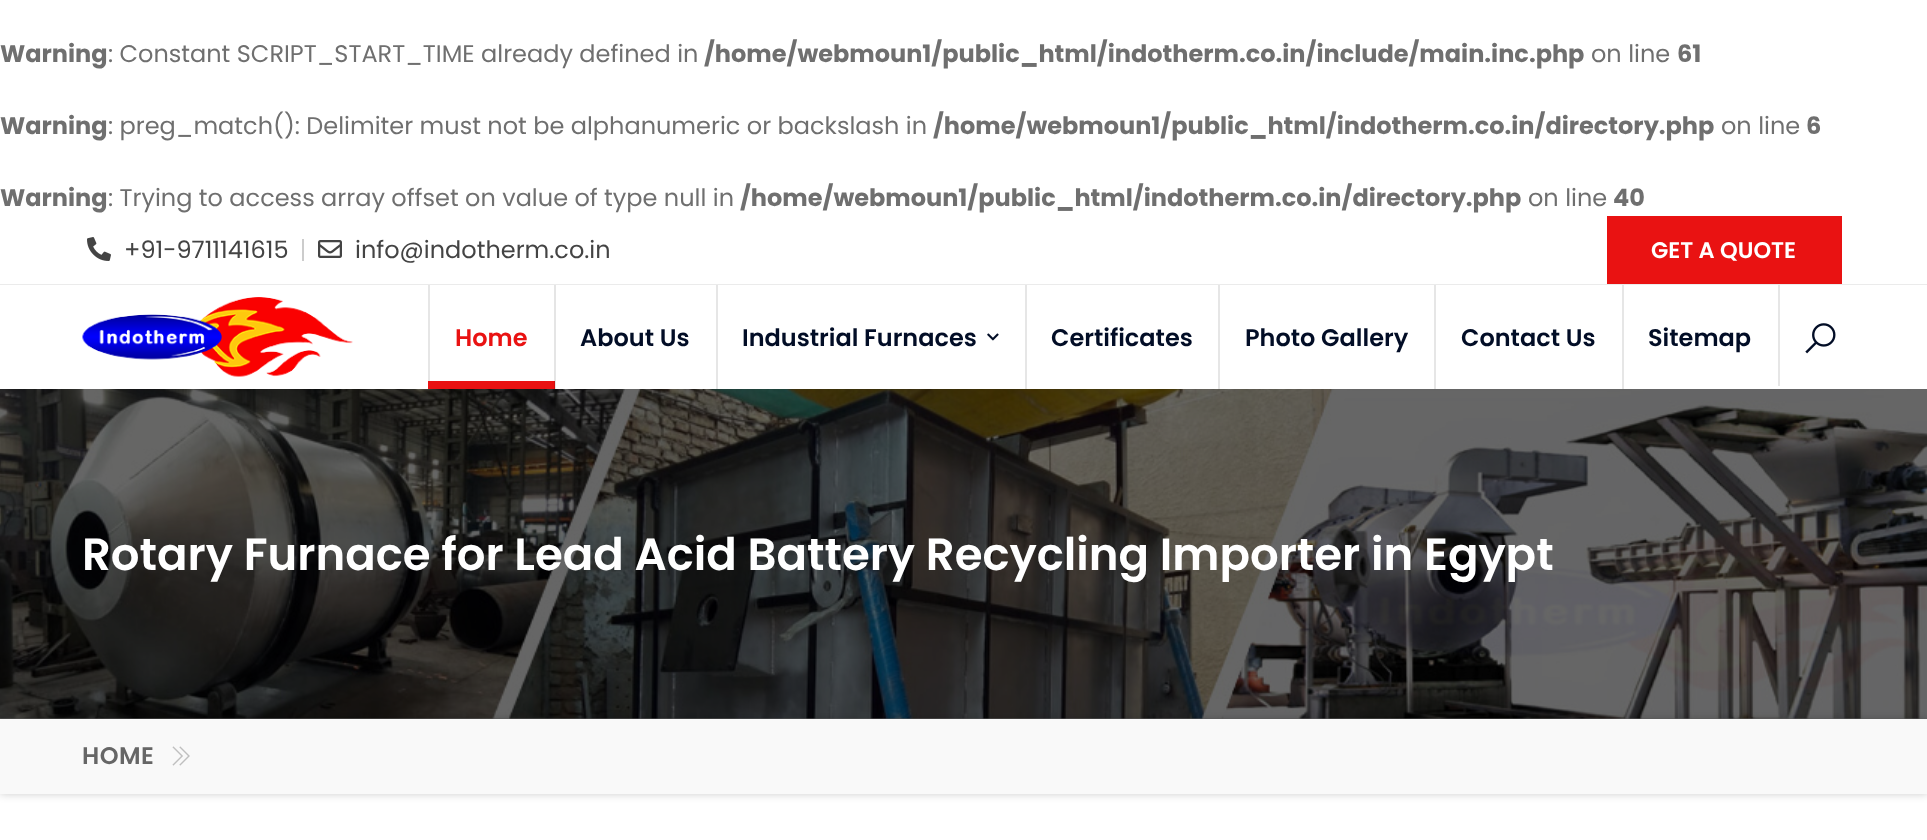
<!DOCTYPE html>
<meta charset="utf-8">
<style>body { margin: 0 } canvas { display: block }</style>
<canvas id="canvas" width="1927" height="840"></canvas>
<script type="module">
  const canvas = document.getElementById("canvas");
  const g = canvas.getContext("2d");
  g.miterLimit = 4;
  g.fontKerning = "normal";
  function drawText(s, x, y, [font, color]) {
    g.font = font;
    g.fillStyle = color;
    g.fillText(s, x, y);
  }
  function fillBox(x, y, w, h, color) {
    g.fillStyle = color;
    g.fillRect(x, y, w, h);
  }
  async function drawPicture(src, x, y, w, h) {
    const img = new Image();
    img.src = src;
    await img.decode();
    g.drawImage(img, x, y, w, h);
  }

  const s1 = ["bold 24px Poppins", "#6F6F6F"];
  const s2 = ["24px Poppins", "#6F6F6F"];
  const s3 = ["24px Poppins", "#444444"];
  const s4 = ["600 22.5px Poppins", "#FFFFFF"];
  const s5 = ["600 24px Poppins", "#E91212"];
  const s6 = ["600 24px Poppins", "#020D26"];
  const s7 = ["600 45px Poppins", "#FFFFFF"];
  const s8 = ["600 24px Poppins", "#666666"];

  fillBox(0, 0, 1927, 840, "#FFFFFF");
  drawText("Warning", 0, 62, s1);
  drawText(": Constant SCRIPT_START_TIME already defined in", 108, 62, s2);
  drawText("/home/webmoun1/public_html/indotherm.co.in/include/main.inc.php", 704, 62, s1);
  drawText("on line", 1591, 62, s2);
  drawText("61", 1677, 62, s1);
  drawText("Warning", 0, 134, s1);
  drawText(": preg_match(): Delimiter must not be alphanumeric or backslash in", 108, 134, s2);
  drawText("/home/webmoun1/public_html/indotherm.co.in/directory.php", 933, 134, s1);
  drawText("on line", 1721, 134, s2);
  drawText("6", 1806, 134, s1);
  drawText("Warning", 0, 206, s1);
  drawText(": Trying to access array offset on value of type null in", 108, 206, s2);
  drawText("/home/webmoun1/public_html/indotherm.co.in/directory.php", 740, 206, s1);
  drawText("on line", 1528, 206, s2);
  drawText("40", 1613, 206, s1);
  fillBox(0, 284, 1927, 1, "#EBEBEB");
  await drawPicture("pic1.png", 87, 237, 24, 24);
  drawText("+91-9711141615", 124, 258, s3);
  fillBox(302, 239, 2, 22, "#CCCCCC");
  await drawPicture("pic2.png", 318, 240, 24, 18);
  drawText("info@indotherm.co.in", 355, 258, s3);
  fillBox(1607, 216, 235, 68, "#E91212");
  drawText("GET A QUOTE", 1651, 258, s4);
  await drawPicture("pic3.png", 82, 297, 271, 80);
  fillBox(428, 285, 2, 104, "#E6E6E6");
  drawText("Home", 455, 346, s5);
  fillBox(428, 381, 127, 8, "#E91212");
  fillBox(554, 285, 2, 104, "rgba(0, 0, 0, 0.1)");
  drawText("About Us", 580, 346, s6);
  fillBox(716, 285, 2, 104, "#E6E6E6");
  drawText("Industrial Furnaces", 742, 346, s6);
  await drawPicture("pic4.png", 987, 333, 12, 8);
  fillBox(1025, 285, 2, 104, "#E6E6E6");
  drawText("Certificates", 1051, 346, s6);
  fillBox(1218, 285, 2, 104, "#E6E6E6");
  drawText("Photo Gallery", 1245, 346, s6);
  fillBox(1434, 285, 2, 104, "#E6E6E6");
  drawText("Contact Us", 1461, 346, s6);
  fillBox(1622, 285, 2, 104, "#E6E6E6");
  drawText("Sitemap", 1648, 346, s6);
  fillBox(1778, 285, 2, 101, "#E6E6E6");
  await drawPicture("pic5.png", 1805, 323, 31, 31);
  fillBox(0, 718, 1927, 1, "#666666");
  await drawPicture("pic6.png", 0, 389, 1927, 330);
  drawText("Rotary Furnace for Lead Acid Battery Recycling Importer in Egypt", 82, 570, s7);
  g.fillStyle = "rgba(0, 0, 0, 0.2)";
  g.filter = "blur(4px)";
  g.beginPath();
  g.rect(0, 719, 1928, 75);
  g.fill();
  g.filter = "none";
  fillBox(0, 719, 1927, 75, "#F9F9F9");
  g.letterSpacing = "0.5px";
  drawText("HOME", 82, 764, s8);
  await drawPicture("pic7.png", 172, 746, 18, 20);
</script>
